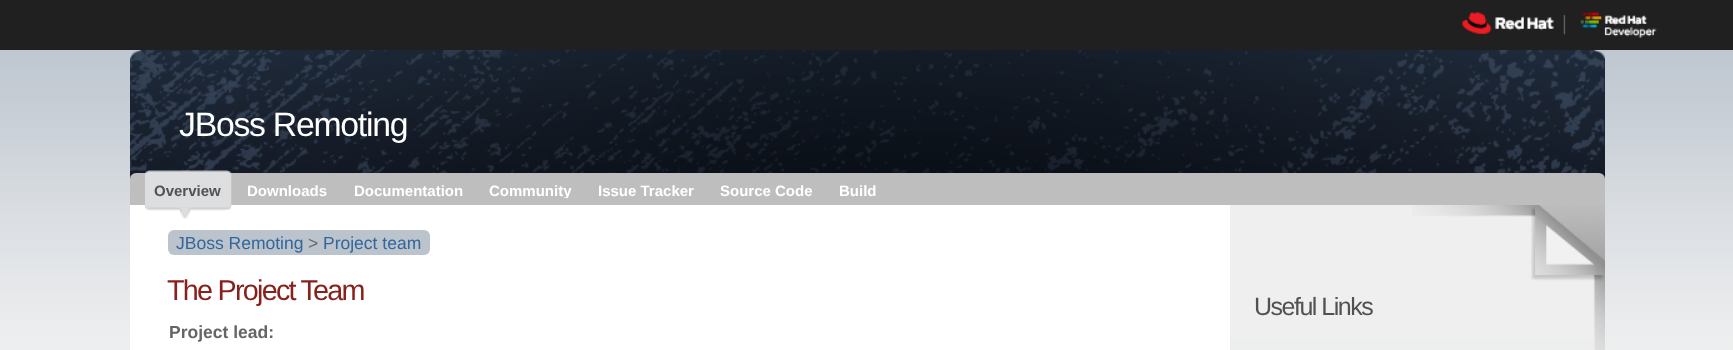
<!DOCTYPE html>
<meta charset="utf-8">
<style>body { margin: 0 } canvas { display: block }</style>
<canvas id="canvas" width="1733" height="350"></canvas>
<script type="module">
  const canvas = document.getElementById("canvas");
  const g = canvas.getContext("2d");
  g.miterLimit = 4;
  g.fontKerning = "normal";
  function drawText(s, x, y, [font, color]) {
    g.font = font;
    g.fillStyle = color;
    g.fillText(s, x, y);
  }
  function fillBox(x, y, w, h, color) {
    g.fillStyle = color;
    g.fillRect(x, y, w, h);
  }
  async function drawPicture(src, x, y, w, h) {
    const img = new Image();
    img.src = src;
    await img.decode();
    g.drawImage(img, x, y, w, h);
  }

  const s1 = ["33.75px Liberation Sans", "#FFFFFF"];
  const s2 = ["bold 15px Liberation Sans", "#515151"];
  const s3 = ["bold 15px Liberation Sans", "#FFFFFF"];
  const s4 = ["17.5px Liberation Sans", "#336699"];
  const s5 = ["17.5px Liberation Sans", "#656565"];
  const s6 = ["28.75px Liberation Sans", "#88201B"];
  const s7 = ["bold 17.5px Liberation Sans", "#656565"];
  const s8 = ["25px Liberation Sans", "#515151"];

  fillBox(0, 0, 1733, 350, "#FFFFFF");
  await drawPicture("pic1.png", 0, 50, 1733, 300);
  fillBox(0, 0, 1733, 50, "#202020");
  await drawPicture("pic2.png", 1462, 12, 92, 22);
  await drawPicture("pic3.png", 1563, 12, 94, 26);
  await drawPicture("pic4.png", 130, 50, 1475, 129);
  g.letterSpacing = "-1.25px";
  drawText("JBoss Remoting", 179, 136, s1);
  g.fillStyle = "#BEBEBE";
  g.beginPath();
  g.roundRect(130, 173, 1475, 32, [6, 6, 0, 0]);
  g.fill();
  fillBox(130, 205, 1100, 145, "#FFFFFF");
  await drawPicture("pic5.png", 225, 170, 7, 40);
  await drawPicture("pic6.png", 145, 170, 80, 41);
  g.letterSpacing = "0px";
  drawText("Overview", 154, 196, s2);
  await drawPicture("pic7.png", 180, 207, 10, 12);
  drawText("Downloads", 247, 196, s3);
  drawText("Documentation", 354, 196, s3);
  g.save();
  g.beginPath();
  g.rect(479, 175, 96, 23);
  g.clip();
  drawText("Community", 489, 196, s3);
  g.restore();
  drawText("Issue Tracker", 598, 196, s3);
  drawText("Source Code", 720, 196, s3);
  drawText("Build", 839, 196, s3);
  fillBox(1230, 205, 364, 134, "#EFEFEF");
  g.fillStyle = "#BBC3CD";
  g.beginPath();
  g.roundRect(168, 230, 135, 25, [6, 0, 0, 6]);
  g.fill();
  drawText("JBoss Remoting", 176, 249, s4);
  fillBox(303, 230, 20, 25, "#BBC3CD");
  drawText(">", 308, 249, s5);
  g.fillStyle = "#BBC3CD";
  g.beginPath();
  g.roundRect(323, 230, 107, 25, [0, 6, 6, 0]);
  g.fill();
  drawText("Project team", 323, 249, s4);
  g.letterSpacing = "-1.75px";
  drawText("The Project Team", 167, 300, s6);
  g.letterSpacing = "0px";
  drawText("Project lead:", 169, 338, s7);
  await drawPicture("pic8.png", 1412, 205, 193, 145);
  g.letterSpacing = "-1.5px";
  drawText("Useful Links", 1254, 315, s8);
</script>
